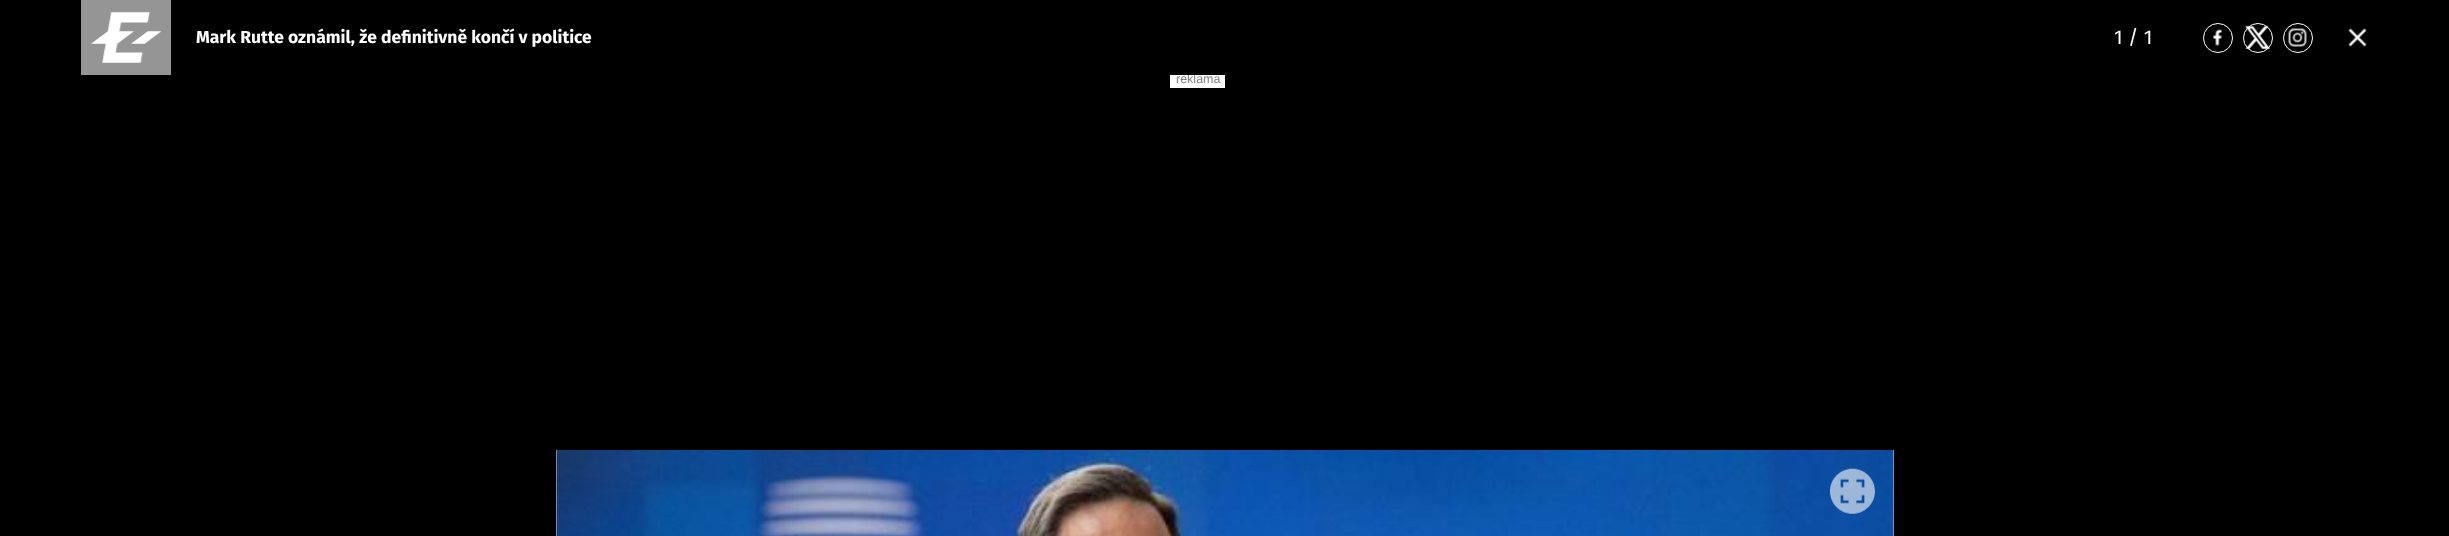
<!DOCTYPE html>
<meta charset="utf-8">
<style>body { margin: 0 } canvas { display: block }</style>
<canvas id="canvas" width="2449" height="536"></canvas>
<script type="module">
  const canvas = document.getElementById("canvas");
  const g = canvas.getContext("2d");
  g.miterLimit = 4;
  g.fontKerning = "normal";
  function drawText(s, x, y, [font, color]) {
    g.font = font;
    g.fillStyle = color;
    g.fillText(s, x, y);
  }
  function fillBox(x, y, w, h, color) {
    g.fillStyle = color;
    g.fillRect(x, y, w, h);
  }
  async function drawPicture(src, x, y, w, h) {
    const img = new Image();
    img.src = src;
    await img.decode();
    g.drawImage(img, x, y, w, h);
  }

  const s1 = ["12.5px Liberation Sans", "#848484"];
  const s2 = ["bold 17.5px Fira Sans", "#FFFFFF"];
  const s3 = ["20px Fira Sans", "#FFFFFF"];

  fillBox(0, 0, 2449, 536, "#000000");
  fillBox(1170, 75, 55, 13, "#FFFFFF");
  drawText("reklama", 1176, 83, s1);
  fillBox(1187, 73, 8, 2, "#000000");
  fillBox(81, 0, 90, 75, "#959595");
  await drawPicture("pic1.png", 91, 12, 71, 51);
  drawText("Mark Rutte oznámil, že definitivně končí v politice", 196, 43, s2);
  drawText("1 / 1", 2114, 44, s3);
  g.beginPath();
  g.arc(2218, 38, 14.5, 0, Math.PI * 2);
  g.strokeStyle = "#FFFFFF";
  g.stroke();
  await drawPicture("pic2.png", 2213, 29, 9, 17);
  g.beginPath();
  g.arc(2258, 38, 14.5, 0, Math.PI * 2);
  g.stroke();
  await drawPicture("pic3.png", 2244, 25, 26, 24);
  g.beginPath();
  g.arc(2298, 38, 14.5, 0, Math.PI * 2);
  g.stroke();
  await drawPicture("pic4.png", 2288, 28, 19, 19);
  await drawPicture("pic5.png", 2348, 28, 19, 19);
  fillBox(556, 450, 1338, 86, "#F2F2F2");
  await drawPicture("pic6.png", 556, 450, 1338, 86);
  await drawPicture("pic7.png", 1830, 468, 45, 46);
</script>
